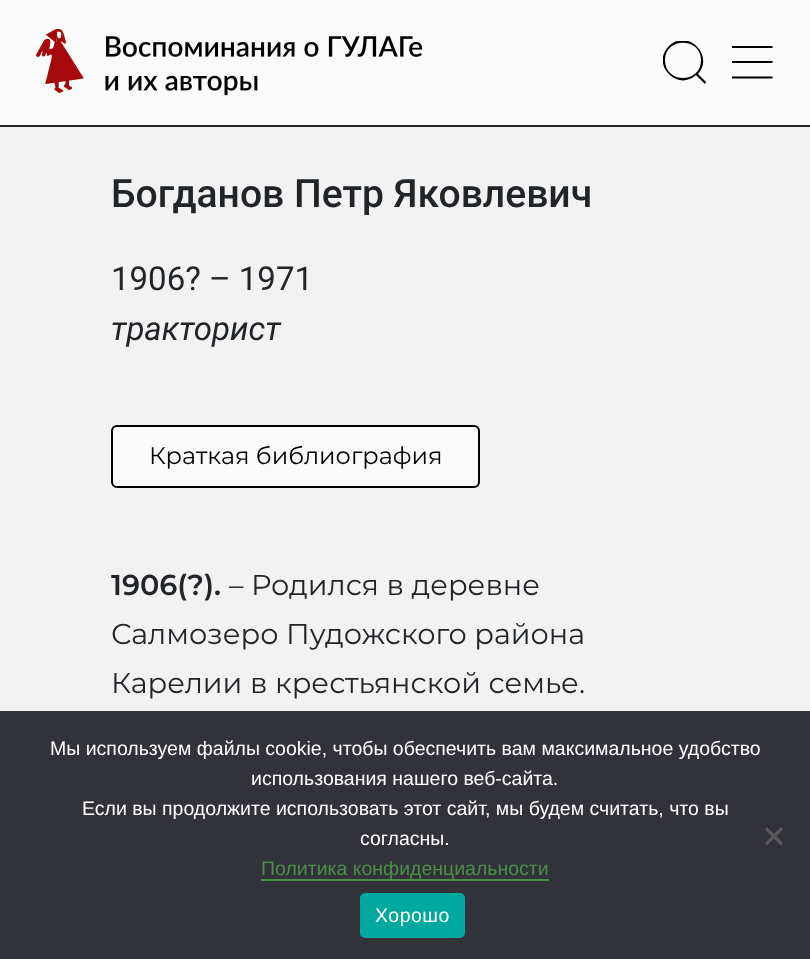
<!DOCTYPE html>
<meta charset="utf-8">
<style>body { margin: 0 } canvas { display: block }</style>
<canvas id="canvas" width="810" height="959"></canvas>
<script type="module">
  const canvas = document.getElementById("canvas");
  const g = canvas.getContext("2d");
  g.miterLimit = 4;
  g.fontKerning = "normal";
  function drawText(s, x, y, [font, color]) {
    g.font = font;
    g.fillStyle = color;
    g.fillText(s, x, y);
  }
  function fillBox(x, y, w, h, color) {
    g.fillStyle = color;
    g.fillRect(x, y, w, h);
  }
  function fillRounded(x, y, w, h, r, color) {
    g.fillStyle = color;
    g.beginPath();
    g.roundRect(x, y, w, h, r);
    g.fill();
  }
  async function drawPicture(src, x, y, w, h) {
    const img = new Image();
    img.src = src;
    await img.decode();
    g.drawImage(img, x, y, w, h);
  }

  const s1 = ["500 39.1px Roboto", "#212529"];
  const s2 = ["33px Roboto", "#212529"];
  const s3 = ["italic 33px Roboto", "#212529"];
  const s4 = ["24px Montserrat", "#000000"];
  const s5 = ["600 28.75px Montserrat", "#212529"];
  const s6 = ["28.75px Montserrat", "#212529"];
  const s7 = ["19.5px Liberation Sans", "#FFFFFF"];
  const s8 = ["19.5px Liberation Sans", "#4B8F4B"];

  fillBox(0, 0, 810, 959, "#F2F2F2");
  fillBox(0, 0, 810, 125, "#FBFBFB");
  fillBox(0, 125, 810, 2, "#212529");
  await drawPicture("pic1.png", 36, 29, 387, 67);
  g.save();
  g.beginPath();
  g.rect(663, 41, 44, 43);
  g.clip();
  g.fillStyle = "#000000";
  g.beginPath();
  g.moveTo(701, 60);
  g.bezierCurveTo(701, 84, 665, 84, 665, 60);
  g.bezierCurveTo(665, 37, 701, 37, 701, 60);
  g.closePath();
  g.moveTo(696, 75);
  g.bezierCurveTo(678, 92, 650, 65, 669, 46);
  g.bezierCurveTo(687, 28, 715, 55, 698, 74);
  g.lineTo(706, 82);
  g.lineTo(705, 84);
  g.closePath();
  g.fill("evenodd");
  g.restore();
  g.beginPath();
  g.moveTo(732, 62);
  g.lineTo(772.5, 62);
  g.moveTo(732, 47);
  g.lineTo(772.5, 47);
  g.moveTo(732, 77.5);
  g.lineTo(772.5, 77.5);
  g.strokeStyle = "#000000";
  g.lineWidth = 1.8;
  g.stroke();
  drawText("Богданов Петр Яковлевич", 111, 207, s1);
  drawText("1906? – 1971", 111, 290, s2);
  drawText("тракторист", 111, 340, s3);
  g.fillStyle = "#FBFBFB";
  g.beginPath();
  g.roundRect(112, 426, 367, 61, 5);
  g.fill();
  g.lineWidth = 2;
  g.stroke();
  drawText("Краткая библиография", 149, 464, s4);
  drawText("1906(?).", 111, 595, s5);
  drawText("– Родился в деревне", 229, 595, s6);
  drawText("Салмозеро Пудожского района", 111, 644, s6);
  drawText("Карелии в крестьянской семье.", 111, 693, s6);
  fillBox(0, 711, 810, 248, "#32323A");
  drawText("Мы используем файлы cookie, чтобы обеспечить вам максимальное удобство", 50, 755, s7);
  drawText("использования нашего веб-сайта.", 251, 785, s7);
  drawText("Если вы продолжите использовать этот сайт, мы будем считать, что вы", 82, 815, s7);
  drawText("согласны.", 360, 845, s7);
  fillBox(261, 879, 288, 2, "#4B8F4B");
  drawText("Политика конфиденциальности", 261, 875, s8);
  g.fillStyle = "#59595D";
  g.beginPath();
  g.moveTo(781, 827);
  g.lineTo(783, 829.5);
  g.lineTo(767, 845.5);
  g.lineTo(765, 843);
  g.closePath();
  g.fill();
  g.beginPath();
  g.moveTo(765, 829.5);
  g.lineTo(767, 827);
  g.lineTo(783, 843);
  g.lineTo(781, 845.5);
  g.closePath();
  g.fill();
  fillRounded(360, 893, 105, 45, 5, "#00A99D");
  g.letterSpacing = "0.5px";
  drawText("Хорошо", 375, 922, s7);
</script>
